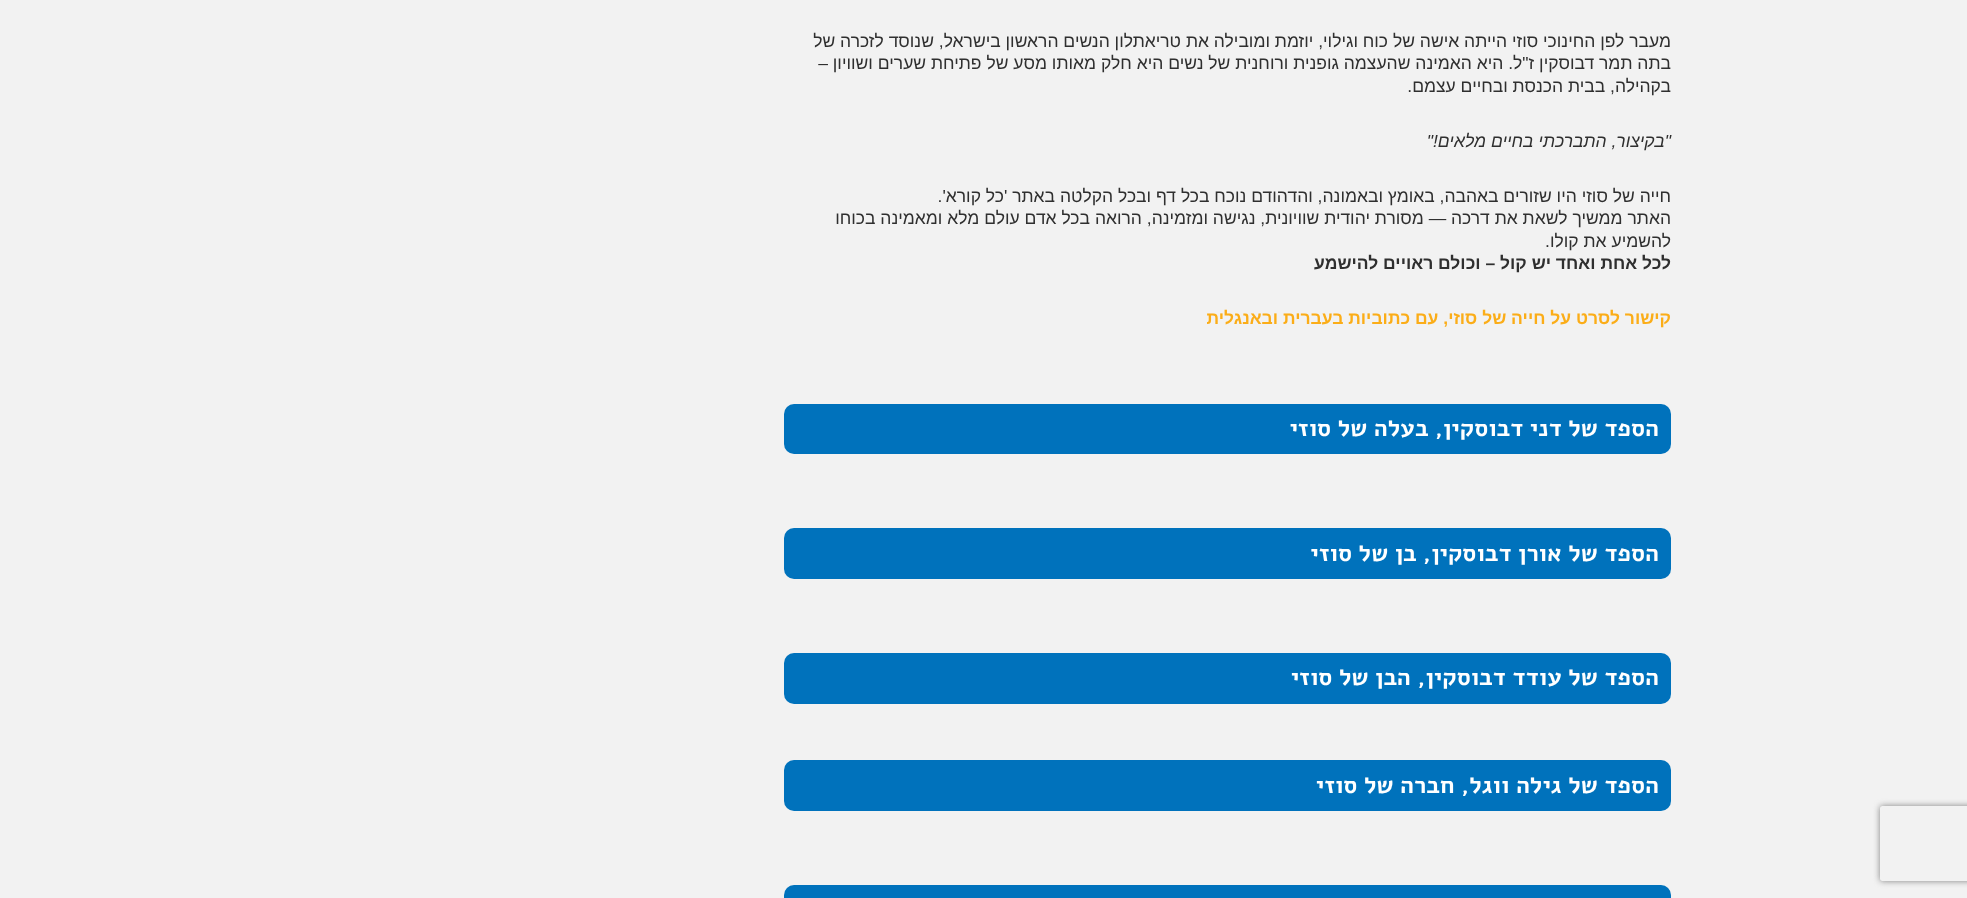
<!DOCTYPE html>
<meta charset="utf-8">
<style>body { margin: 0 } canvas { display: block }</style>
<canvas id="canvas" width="1967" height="898"></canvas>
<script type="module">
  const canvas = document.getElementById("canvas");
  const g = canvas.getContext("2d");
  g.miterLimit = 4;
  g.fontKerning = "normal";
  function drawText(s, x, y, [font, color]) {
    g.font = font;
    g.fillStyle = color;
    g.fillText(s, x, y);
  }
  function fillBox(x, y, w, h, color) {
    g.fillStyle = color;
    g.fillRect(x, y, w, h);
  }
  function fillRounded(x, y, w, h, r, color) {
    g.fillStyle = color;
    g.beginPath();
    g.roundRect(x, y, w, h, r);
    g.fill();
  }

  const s1 = ["17.5px Liberation Sans", "#2F2F2F"];
  const s2 = ["italic 17.5px Liberation Sans", "#2F2F2F"];
  const s3 = ["bold 17.5px Liberation Sans", "#2F2F2F"];
  const s4 = ["bold 17.5px Liberation Sans", "#FBAD18"];
  const s5 = ["bold 23.75px Alef", "#FFFFFF"];

  fillBox(0, 0, 1967, 898, "#F2F2F2");
  g.direction = "rtl";
  drawText("מעבר לפן החינוכי סוזי הייתה אישה של כוח וגילוי, יוזמת ומובילה את טריאתלון הנשים הראשון בישראל, שנוסד לזכרה של", 1671, 47, s1);
  drawText("בתה תמר דבוסקין ז\"ל. היא האמינה שהעצמה גופנית ורוחנית של נשים היא חלק מאותו מסע של פתיחת שערים ושוויון –", 1671, 69, s1);
  drawText("בקהילה, בבית הכנסת ובחיים עצמם.", 1671, 92, s1);
  drawText("\"בקיצור, התברכתי בחיים מלאים!\"", 1671, 147, s2);
  drawText("חייה של סוזי היו שזורים באהבה, באומץ ובאמונה, והדהודם נוכח בכל דף ובכל הקלטה באתר 'כל קורא'.", 1671, 202, s1);
  drawText("האתר ממשיך לשאת את דרכה — מסורת יהודית שוויונית, נגישה ומזמינה, הרואה בכל אדם עולם מלא ומאמינה בכוחו", 1671, 224, s1);
  drawText("להשמיע את קולו.", 1671, 247, s1);
  drawText("לכל אחת ואחד יש קול – וכולם ראויים להישמע", 1671, 269, s3);
  drawText("קישור לסרט על חייה של סוזי, עם כתוביות בעברית ובאנגלית", 1671, 324, s4);
  fillRounded(784, 404, 887, 50, 10, "#0072BC");
  drawText("הספד של דני דבוסקין, בעלה של סוזי", 1659, 436, s5);
  fillRounded(784, 528, 887, 51, 10, "#0072BC");
  drawText("הספד של אורן דבוסקין, בן של סוזי", 1659, 561, s5);
  fillRounded(784, 653, 887, 51, 10, "#0072BC");
  drawText("הספד של עודד דבוסקין, הבן של סוזי", 1659, 685, s5);
  fillRounded(784, 760, 887, 51, 10, "#0072BC");
  drawText("הספד של גילה ווגל, חברה של סוזי", 1659, 793, s5);
  fillRounded(784, 885, 887, 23, 10, "#0072BC");
  g.save();
  g.beginPath();
  g.moveTo(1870, 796);
  g.lineTo(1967, 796);
  g.lineTo(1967, 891);
  g.lineTo(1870, 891);
  g.closePath();
  g.moveTo(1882.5, 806);
  g.lineTo(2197.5, 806);
  g.bezierCurveTo(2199, 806, 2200, 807, 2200, 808.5);
  g.lineTo(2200, 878.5);
  g.bezierCurveTo(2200, 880, 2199, 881, 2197.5, 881);
  g.lineTo(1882.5, 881);
  g.bezierCurveTo(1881, 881, 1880, 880, 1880, 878.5);
  g.lineTo(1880, 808.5);
  g.bezierCurveTo(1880, 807, 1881, 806, 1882.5, 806);
  g.closePath();
  g.clip("evenodd");
  g.fillStyle = "#808080";
  g.filter = "blur(3px)";
  g.beginPath();
  g.roundRect(1880, 806, 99, 75, 2.5);
  g.fill();
  g.filter = "none";
  g.restore();
</script>
